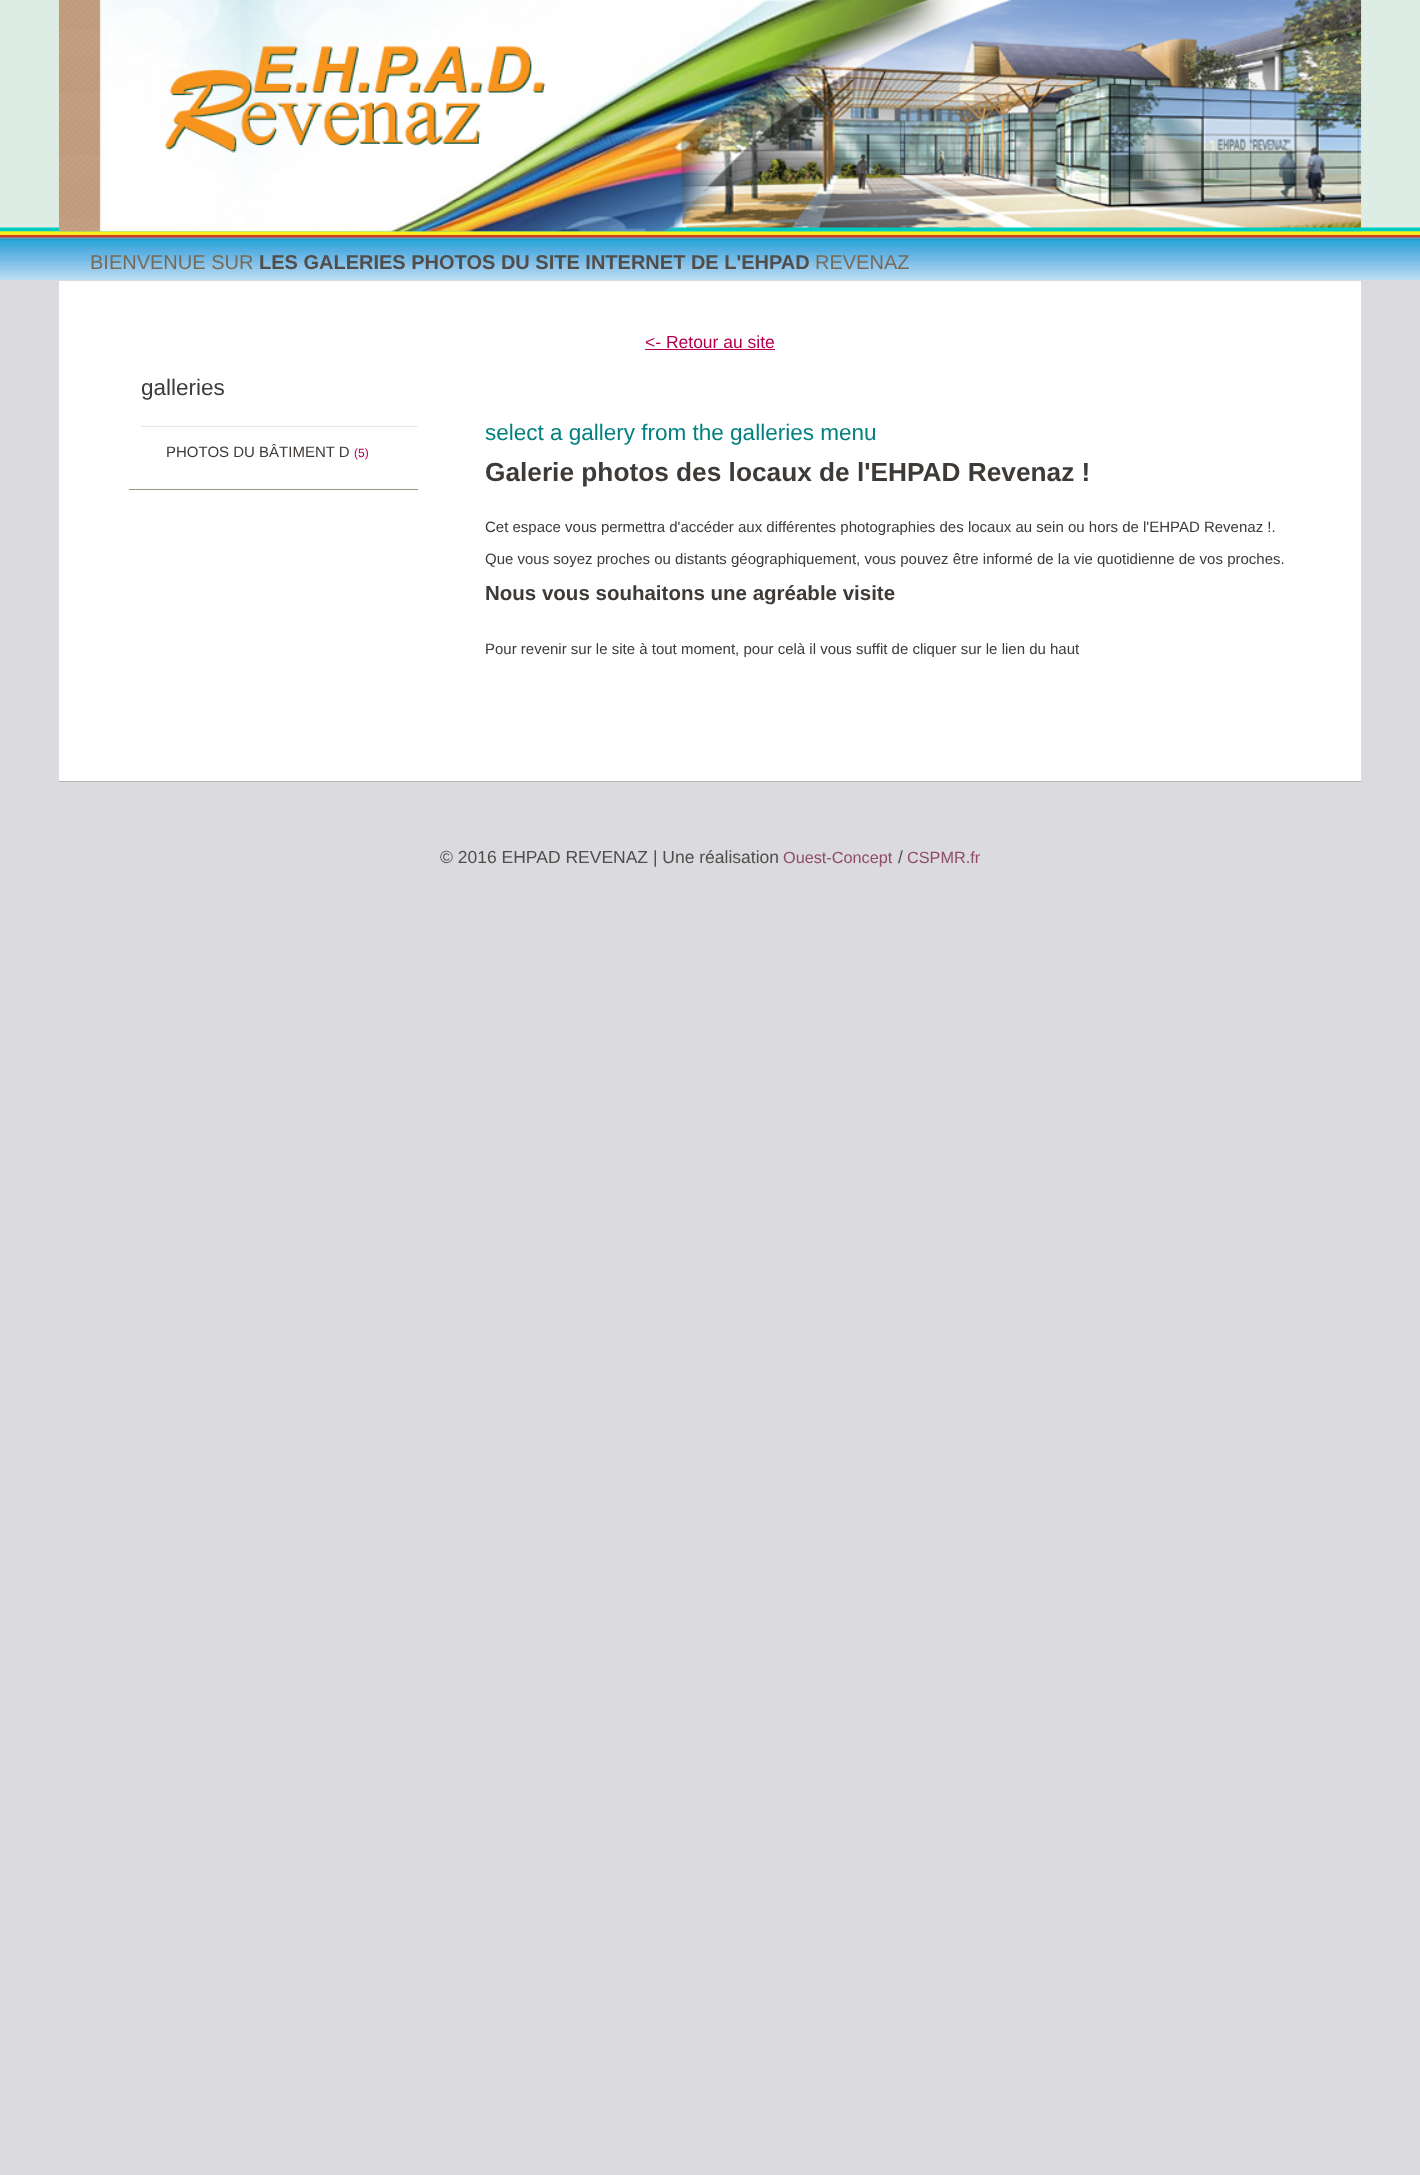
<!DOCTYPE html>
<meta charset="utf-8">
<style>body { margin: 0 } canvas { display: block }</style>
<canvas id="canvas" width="1420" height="2175"></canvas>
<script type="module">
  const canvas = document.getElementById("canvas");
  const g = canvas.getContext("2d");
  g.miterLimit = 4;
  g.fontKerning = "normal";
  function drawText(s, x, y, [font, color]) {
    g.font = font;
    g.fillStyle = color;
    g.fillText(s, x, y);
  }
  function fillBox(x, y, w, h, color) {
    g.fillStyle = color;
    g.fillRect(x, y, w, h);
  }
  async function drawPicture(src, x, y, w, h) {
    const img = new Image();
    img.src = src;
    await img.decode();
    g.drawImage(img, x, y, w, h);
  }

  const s1 = ["20px Liberation Sans", "#786A58"];
  const s2 = ["bold 20px Liberation Sans", "#504D4A"];
  const s3 = ["17.5px Liberation Sans", "#B50050"];
  const s4 = ["22.5px Liberation Sans", "#3D3A37"];
  const s5 = ["15px Liberation Sans", "#3D3A37"];
  const s6 = ["12px Liberation Sans", "#B50050"];
  const s7 = ["22.5px Liberation Sans", "#008080"];
  const s8 = ["bold 26.25px Liberation Sans", "#3D3A37"];
  const s9 = ["bold 20.5px Liberation Sans", "#3D3A37"];
  const s10 = ["17.5px Liberation Sans", "#504D4A"];
  const s11 = ["16.25px Liberation Sans", "#904C66"];

  fillBox(0, 0, 1420, 2175, "#DADADF");
  await drawPicture("pic1.png", 0, 0, 1420, 280);
  fillBox(59, 781, 1302, 1, "#B0B0B0");
  await drawPicture("pic2.png", 58, 0, 1304, 232);
  drawText("BIENVENUE SUR", 90, 269, s1);
  drawText("LES GALERIES PHOTOS DU SITE INTERNET DE L'EHPAD", 259, 269, s2);
  drawText("REVENAZ", 815, 269, s1);
  fillBox(59, 281, 1302, 500, "#FFFFFF");
  drawText("<- Retour au site", 645, 348, s3);
  fillBox(645, 349, 130, 1, "#B50050");
  fillBox(129, 489, 289, 1, "#9C9285");
  drawText("galleries", 141, 395, s4);
  fillBox(141, 426, 277, 1, "#E6E6E6");
  drawText("PHOTOS DU BÂTIMENT D", 166, 457, s5);
  drawText("(5)", 354, 457, s6);
  drawText("select a gallery from the galleries menu", 485, 440, s7);
  drawText("Galerie photos des locaux de l'EHPAD Revenaz !", 485, 481, s8);
  drawText("Cet espace vous permettra d'accéder aux différentes photographies des locaux au sein ou hors de l'EHPAD Revenaz !.", 485, 532, s5);
  drawText("Que vous soyez proches ou distants géographiquement, vous pouvez être informé de la vie quotidienne de vos proches.", 485, 564, s5);
  drawText("Nous vous souhaitons une agréable visite", 485, 600, s9);
  drawText("Pour revenir sur le site à tout moment, pour celà il vous suffit de cliquer sur le lien du haut", 485, 654, s5);
  drawText("© 2016 EHPAD REVENAZ | Une réalisation", 440, 863, s10);
  drawText("Ouest-Concept", 783, 863, s11);
  drawText("/", 898, 863, s10);
  drawText("CSPMR.fr", 907, 863, s11);
</script>
